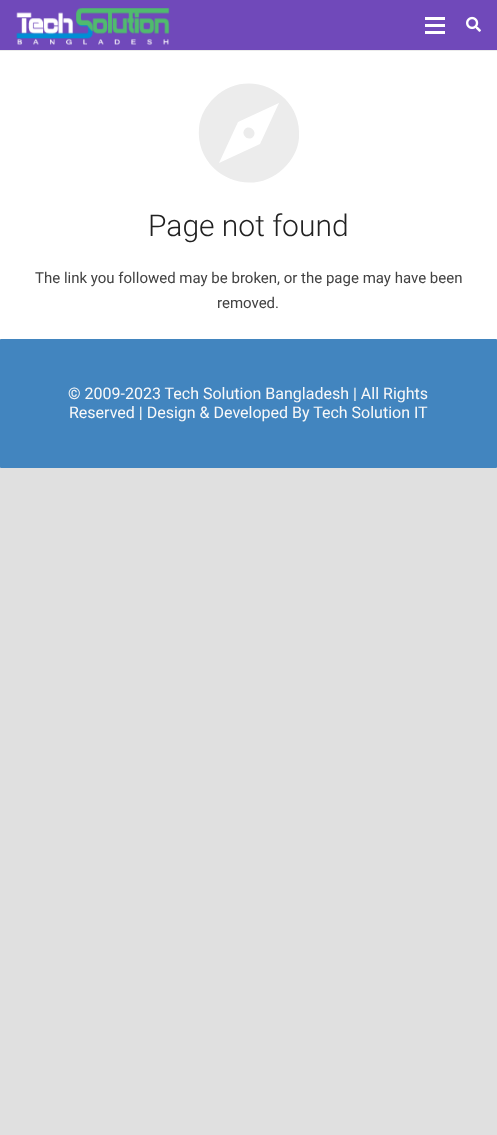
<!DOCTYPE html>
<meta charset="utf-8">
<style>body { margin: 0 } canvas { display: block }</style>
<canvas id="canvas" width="497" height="1135"></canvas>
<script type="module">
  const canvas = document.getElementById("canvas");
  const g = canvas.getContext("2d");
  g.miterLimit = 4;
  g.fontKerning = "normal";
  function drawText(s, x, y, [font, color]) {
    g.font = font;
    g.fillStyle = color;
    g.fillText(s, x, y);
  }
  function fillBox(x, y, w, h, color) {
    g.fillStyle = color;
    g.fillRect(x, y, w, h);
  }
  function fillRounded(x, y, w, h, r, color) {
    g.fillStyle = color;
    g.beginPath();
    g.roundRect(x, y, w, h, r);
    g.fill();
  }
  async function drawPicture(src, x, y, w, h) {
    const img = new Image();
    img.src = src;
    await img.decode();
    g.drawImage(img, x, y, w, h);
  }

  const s1 = ["300 30px Roboto", "#212121"];
  const s2 = ["15px Roboto", "#424242"];
  const s3 = ["16px Roboto", "#F9F9F9"];

  fillBox(0, 0, 497, 1135, "#E0E0E0");
  fillBox(0, 51, 497, 288, "#FFFFFF");
  fillBox(0, 50, 497, 1, "#EBEBEB");
  fillBox(0, 0, 497, 50, "#7049BA");
  await drawPicture("pic1.png", 16, 8, 154, 37);
  fillBox(425, 24, 20, 3, "#FFFFFF");
  fillBox(425, 17, 20, 3, "#FFFFFF");
  fillBox(425, 31, 20, 3, "#FFFFFF");
  await drawPicture("pic2.png", 466, 16, 15, 16);
  g.fillStyle = "#ECECEC";
  g.beginPath();
  g.moveTo(260, 144);
  g.lineTo(279, 103);
  g.lineTo(238, 122);
  g.lineTo(219, 163);
  g.closePath();
  g.moveTo(214, 98);
  g.bezierCurveTo(247, 65, 303, 92, 299, 138);
  g.bezierCurveTo(298, 150, 292, 160, 284, 168);
  g.bezierCurveTo(251, 201, 195, 174, 199, 128);
  g.bezierCurveTo(200, 116, 206, 106, 214, 98);
  g.closePath();
  g.moveTo(245, 129);
  g.bezierCurveTo(250, 124, 258, 132, 253, 137);
  g.bezierCurveTo(248, 142, 240, 134, 245, 129);
  g.closePath();
  g.fill();
  drawText("Page not found", 148, 236, s1);
  drawText("The link you followed may be broken, or the page may have been", 35, 283, s2);
  drawText("removed.", 217, 308, s2);
  fillRounded(0, 339, 497, 129, 1, "#4285BF");
  drawText("© 2009-2023 Tech Solution Bangladesh | All Rights", 68, 399, s3);
  drawText("Reserved | Design & Developed By Tech Solution IT", 69, 418, s3);
</script>
